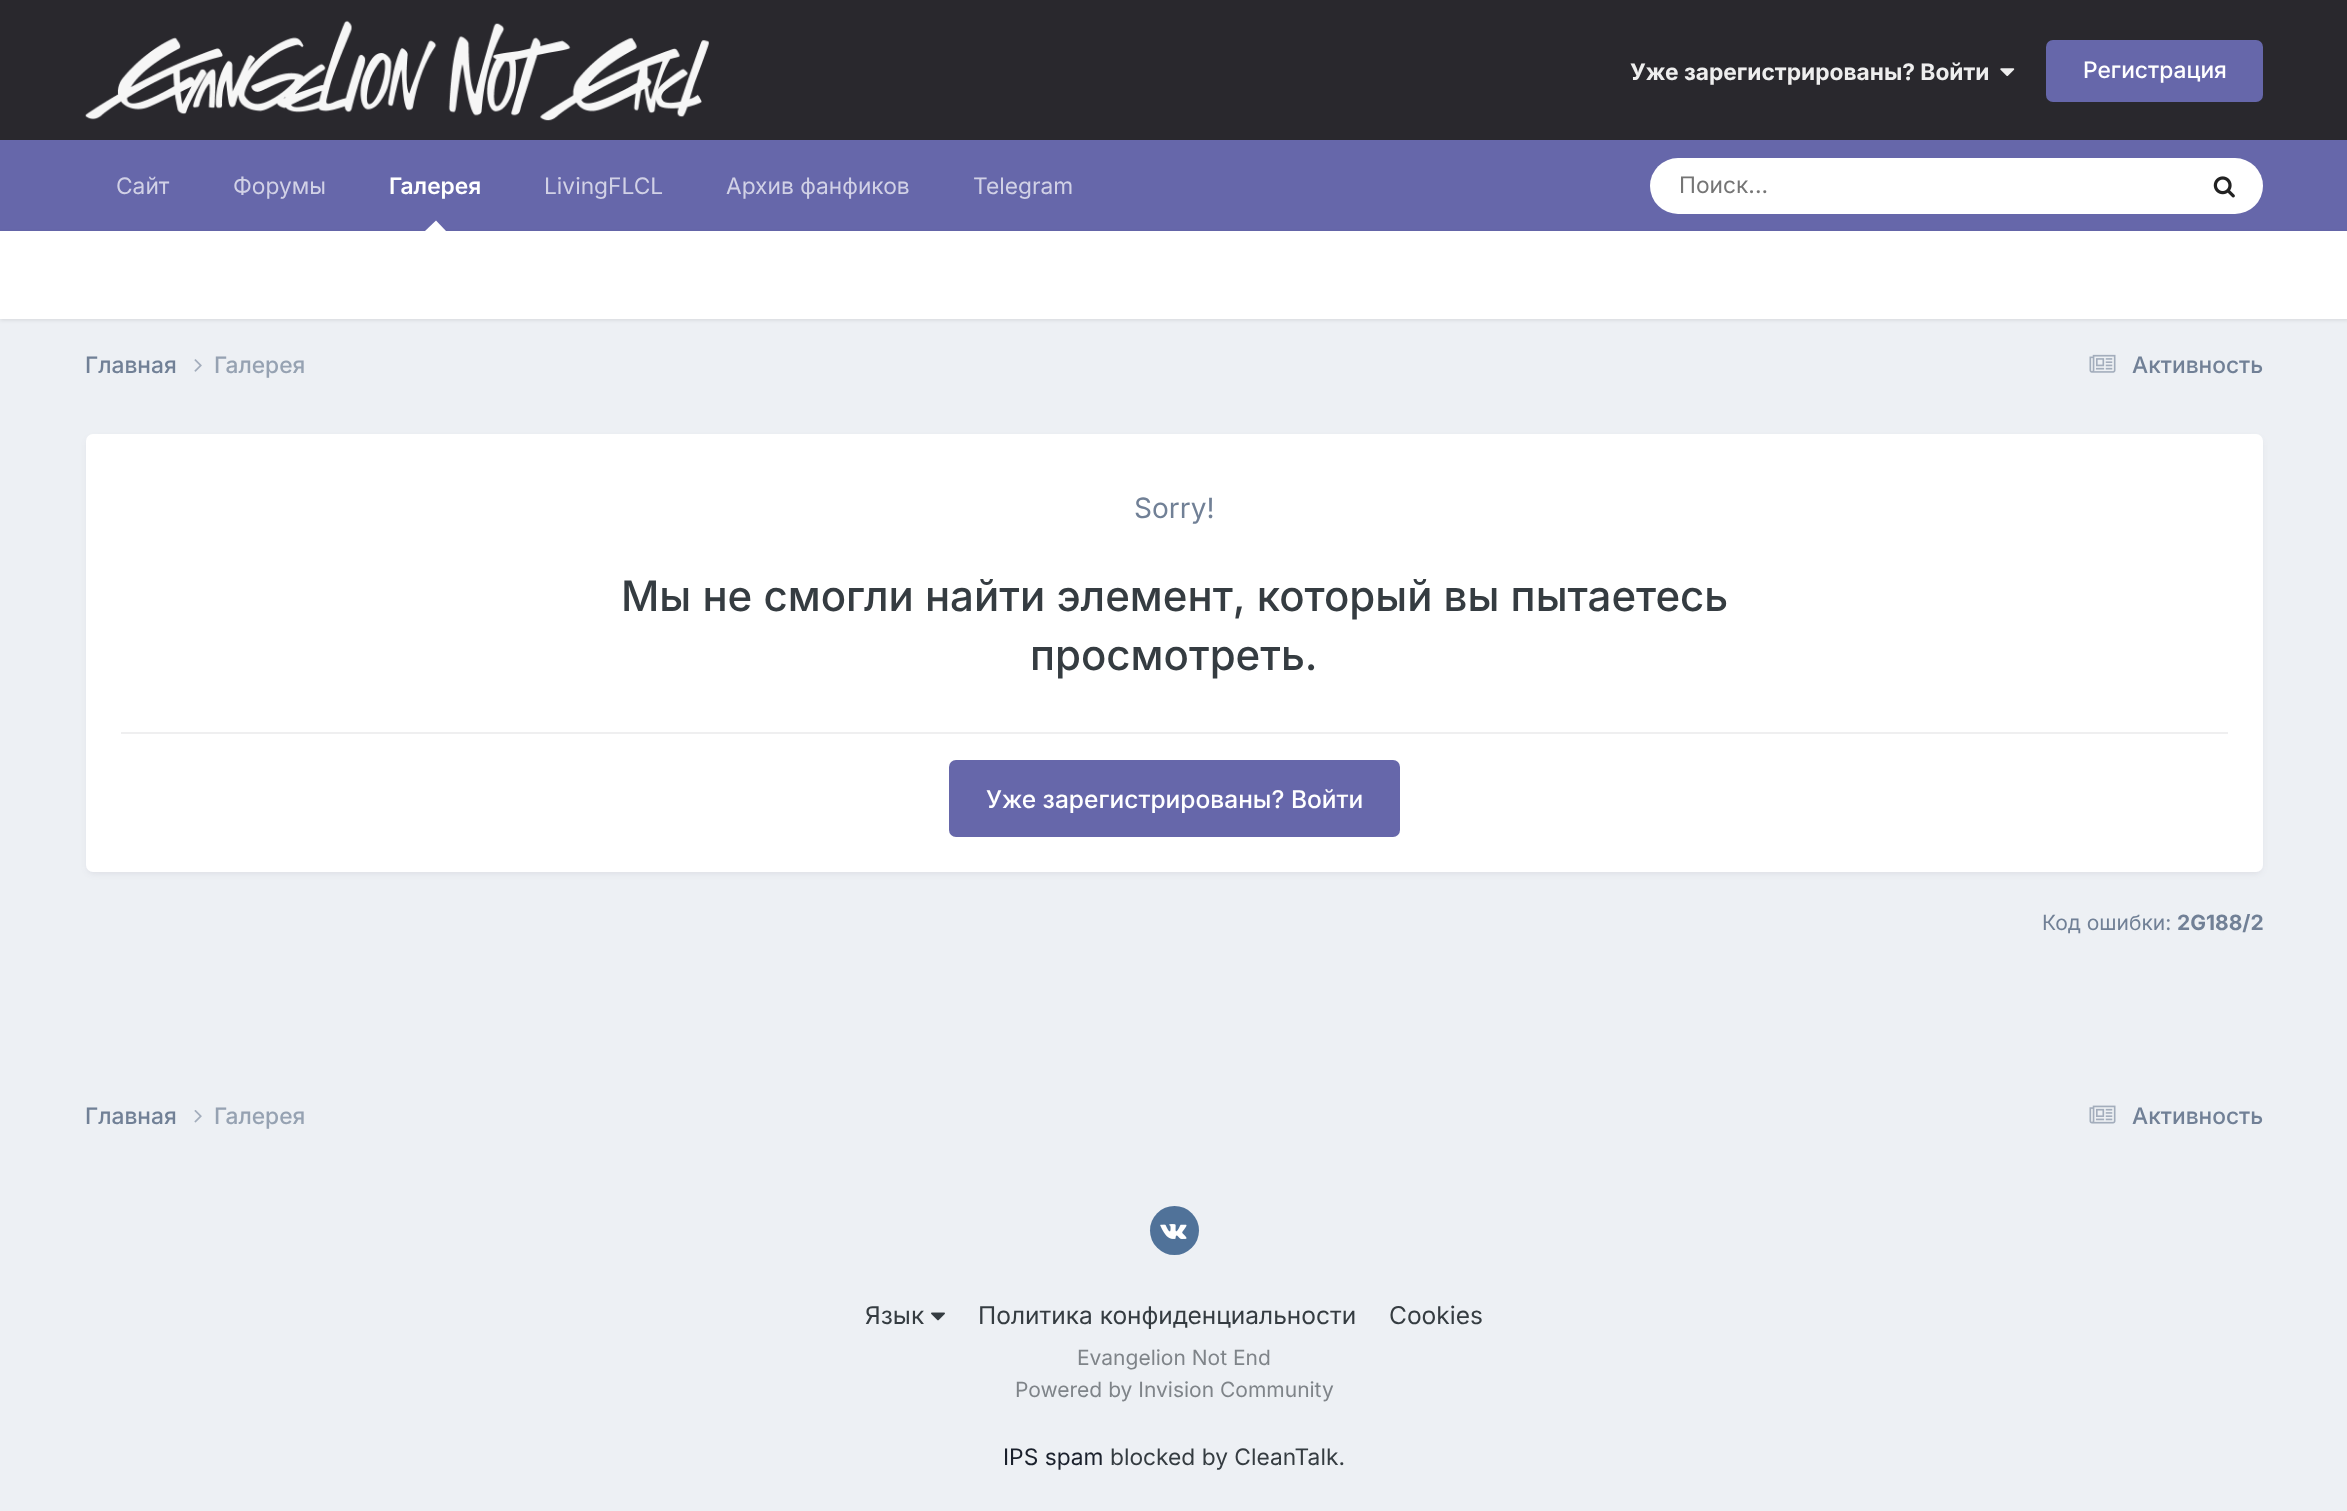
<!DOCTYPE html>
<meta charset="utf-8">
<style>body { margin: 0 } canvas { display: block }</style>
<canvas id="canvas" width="2347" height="1511"></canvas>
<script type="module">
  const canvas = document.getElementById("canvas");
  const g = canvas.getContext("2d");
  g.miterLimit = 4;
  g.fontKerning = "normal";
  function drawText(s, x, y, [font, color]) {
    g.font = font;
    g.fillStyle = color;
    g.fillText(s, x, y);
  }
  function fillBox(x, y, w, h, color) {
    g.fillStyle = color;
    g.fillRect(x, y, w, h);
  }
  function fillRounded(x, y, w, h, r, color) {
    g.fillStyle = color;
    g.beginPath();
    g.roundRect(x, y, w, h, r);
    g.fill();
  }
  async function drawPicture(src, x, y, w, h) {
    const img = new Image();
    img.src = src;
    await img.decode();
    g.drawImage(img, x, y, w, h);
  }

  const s1 = ["bold 22.75px Inter", "#EEEEEE"];
  const s2 = ["500 22.75px Inter", "#FFFFFF"];
  const s3 = ["22.75px Inter", "#D1D1E6"];
  const s4 = ["600 22.75px Inter", "#FFFFFF"];
  const s5 = ["22.75px Inter", "#757575"];
  const s6 = ["500 22.75px Inter", "#718096"];
  const s7 = ["500 22.75px Inter", "#96A2B2"];
  const s8 = ["28px Inter", "#718096"];
  const s9 = ["500 42px Inter", "#353C41"];
  const s10 = ["500 24.5px Inter", "#FFFFFF"];
  const s11 = ["21px Inter", "#718096"];
  const s12 = ["bold 21px Inter", "#718096"];
  const s13 = ["24.5px Inter", "#353C41"];
  const s14 = ["21px Inter", "#7F8489"];
  const s15 = ["22.75px Inter", "#1A202C"];
  const s16 = ["22.75px Inter", "#353C41"];

  fillBox(0, 0, 2347, 1511, "#EDF0F4");
  fillBox(0, 0, 2347, 140, "#29282D");
  await drawPicture("pic1.png", 85, 20, 624, 101);
  drawText("Уже зарегистрированы? Войти", 1630, 80, s1);
  await drawPicture("pic2.png", 2000, 68, 15, 9);
  fillRounded(2046, 40, 217, 62, 7, "#6667AA");
  drawText("Регистрация", 2083, 78, s2);
  fillBox(0, 140, 2347, 91, "#6667AA");
  drawText("Сайт", 116, 194, s3);
  drawText("Форумы", 233, 194, s3);
  drawText("Галерея", 389, 194, s4);
  g.fillStyle = "rgba(0, 0, 0, 0.1)";
  g.filter = "blur(2px)";
  g.beginPath();
  g.rect(0, 233, 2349, 87);
  g.fill();
  g.filter = "none";
  g.fillStyle = "#FFFFFF";
  g.beginPath();
  g.moveTo(446, 231);
  g.lineTo(425, 231);
  g.lineTo(436, 220.5);
  g.closePath();
  g.fill();
  drawText("LivingFLCL", 544, 194, s3);
  drawText("Архив фанфиков", 726, 194, s3);
  drawText("Telegram", 973, 194, s3);
  fillRounded(1650, 158, 613, 56, 28, "#FFFFFF");
  drawText("Поиск...", 1679, 193, s5);
  await drawPicture("pic3.png", 2213, 176, 22, 22);
  fillBox(0, 231, 2347, 88, "#FFFFFF");
  drawText("Главная", 85, 373, s6);
  await drawPicture("pic4.png", 194, 359, 8, 13);
  drawText("Галерея", 214, 373, s7);
  await drawPicture("pic5.png", 2089, 354, 27, 19);
  drawText("Активность", 2132, 373, s6);
  g.fillStyle = "rgba(56, 47, 74, 0.1)";
  g.filter = "blur(3.5px)";
  g.beginPath();
  g.roundRect(88, 439, 2173, 434, 5);
  g.fill();
  g.filter = "none";
  fillRounded(86, 434, 2177, 438, 7, "#FFFFFF");
  drawText("Sorry!", 1134, 518, s8);
  drawText("Мы не смогли найти элемент, который вы пытаетесь", 621, 611, s9);
  drawText("просмотреть.", 1030, 670, s9);
  fillBox(121, 732, 2107, 2, "#EFEFF0");
  fillRounded(949, 760, 451, 77, 7, "#6667AA");
  drawText("Уже зарегистрированы? Войти", 986, 808, s10);
  drawText("Код ошибки:", 2042, 930, s11);
  drawText("2G188/2", 2177, 930, s12);
  drawText("Главная", 85, 1124, s6);
  await drawPicture("pic6.png", 194, 1110, 8, 13);
  drawText("Галерея", 214, 1124, s7);
  await drawPicture("pic7.png", 2089, 1105, 27, 19);
  drawText("Активность", 2132, 1124, s6);
  g.fillStyle = "#507299";
  g.beginPath();
  g.arc(1174.5, 1230.5, 24.5, 0, Math.PI * 2);
  g.fill();
  await drawPicture("pic8.png", 1160, 1224, 27, 15);
  drawText("Язык", 865, 1324, s13);
  await drawPicture("pic9.png", 931, 1312, 14, 9);
  drawText("Политика конфиденциальности", 978, 1324, s13);
  drawText("Cookies", 1389, 1324, s13);
  drawText("Evangelion Not End", 1077, 1365, s14);
  drawText("Powered by Invision Community", 1015, 1397, s14);
  drawText("IPS spam", 1003, 1465, s15);
  drawText("blocked by CleanTalk.", 1110, 1465, s16);
</script>
